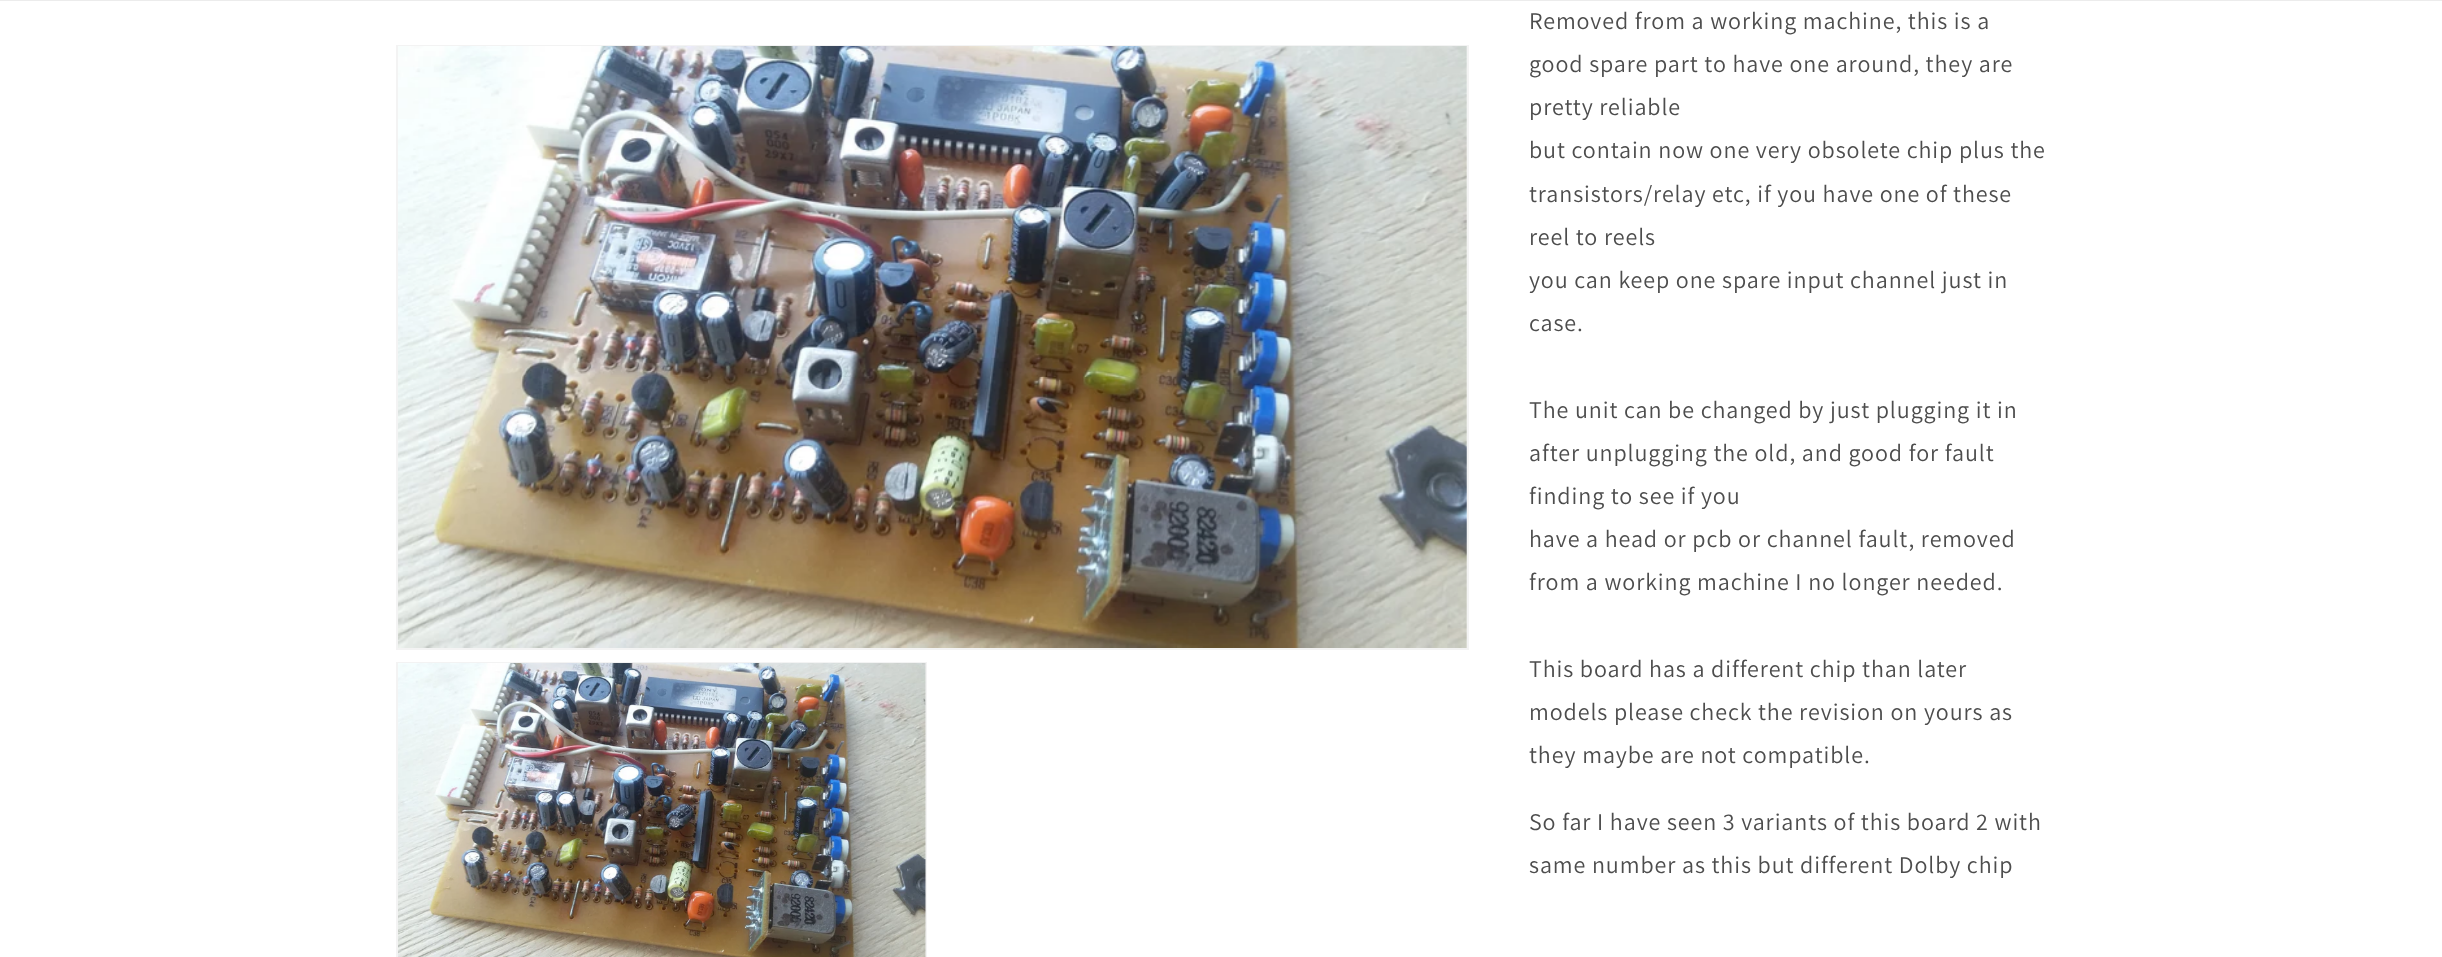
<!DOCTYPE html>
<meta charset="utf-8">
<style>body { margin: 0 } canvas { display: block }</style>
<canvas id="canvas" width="2442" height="957"></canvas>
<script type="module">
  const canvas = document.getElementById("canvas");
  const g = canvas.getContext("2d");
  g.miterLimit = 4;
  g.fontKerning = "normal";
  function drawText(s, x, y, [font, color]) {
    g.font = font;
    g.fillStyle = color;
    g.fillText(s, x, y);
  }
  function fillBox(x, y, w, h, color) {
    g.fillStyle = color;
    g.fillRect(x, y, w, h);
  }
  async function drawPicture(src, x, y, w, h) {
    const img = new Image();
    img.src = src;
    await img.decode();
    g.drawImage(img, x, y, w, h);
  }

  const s1 = ["24px Assistant", "#4D4D4D"];

  fillBox(0, 0, 2442, 957, "#FFFFFF");
  fillBox(0, 0, 2442, 1, "#ECECEC");
  g.strokeStyle = "#F3F3F3";
  g.lineWidth = 2;
  g.strokeRect(397, 46, 1071, 603);
  await drawPicture("pic1.png", 398, 46, 1069, 602);
  g.strokeRect(397, 663, 529, 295);
  await drawPicture("pic2.png", 398, 663, 528, 294);
  g.letterSpacing = "0.9px";
  drawText("Removed from a working machine, this is a", 1529, 29, s1);
  drawText("good spare part to have one around, they are", 1529, 72, s1);
  drawText("pretty reliable", 1529, 115, s1);
  drawText("but contain now one very obsolete chip plus the", 1529, 158, s1);
  drawText("transistors/relay etc, if you have one of these", 1529, 202, s1);
  drawText("reel to reels", 1529, 245, s1);
  drawText("you can keep one spare input channel just in", 1529, 288, s1);
  drawText("case.", 1529, 331, s1);
  drawText("The unit can be changed by just plugging it in", 1529, 418, s1);
  drawText("after unplugging the old, and good for fault", 1529, 461, s1);
  drawText("finding to see if you", 1529, 504, s1);
  drawText("have a head or pcb or channel fault, removed", 1529, 547, s1);
  drawText("from a working machine I no longer needed.", 1529, 590, s1);
  drawText("This board has a different chip than later", 1529, 677, s1);
  drawText("models please check the revision on yours as", 1529, 720, s1);
  drawText("they maybe are not compatible.", 1529, 763, s1);
  drawText("So far I have seen 3 variants of this board 2 with", 1529, 830, s1);
  drawText("same number as this but different Dolby chip", 1529, 873, s1);
</script>
